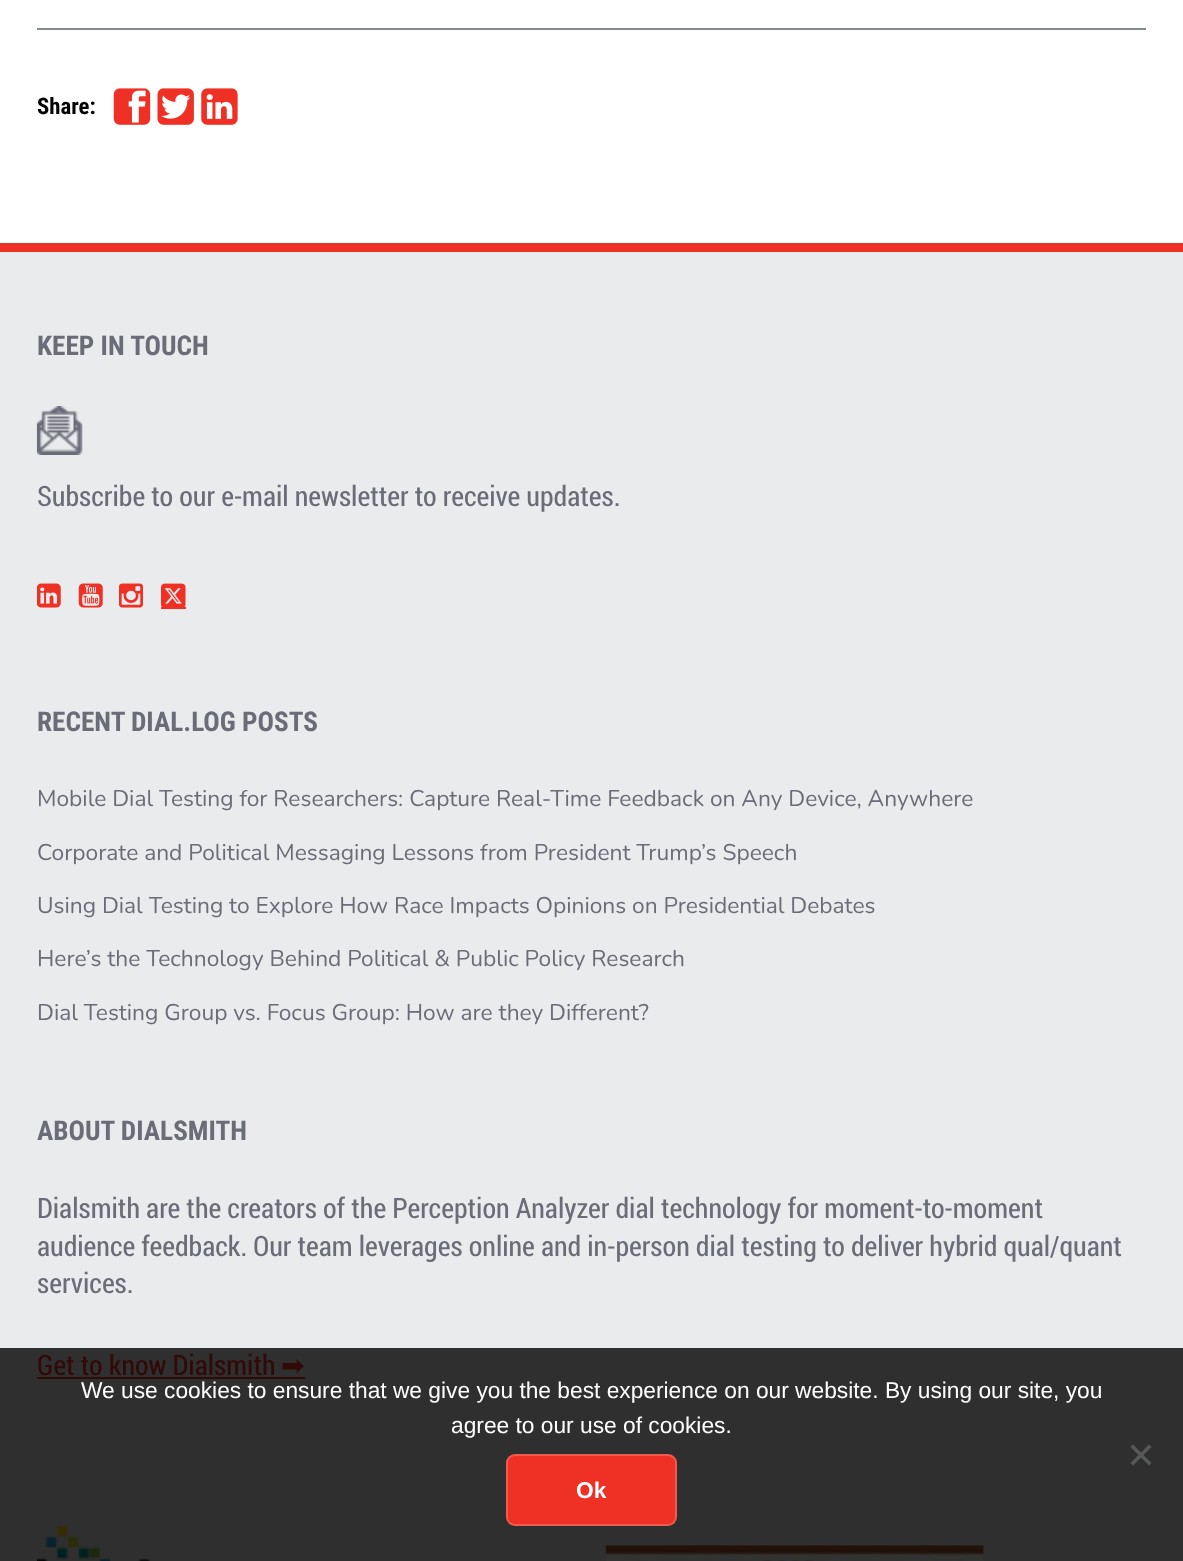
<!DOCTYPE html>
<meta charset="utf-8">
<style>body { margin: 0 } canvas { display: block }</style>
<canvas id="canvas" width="1183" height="1561"></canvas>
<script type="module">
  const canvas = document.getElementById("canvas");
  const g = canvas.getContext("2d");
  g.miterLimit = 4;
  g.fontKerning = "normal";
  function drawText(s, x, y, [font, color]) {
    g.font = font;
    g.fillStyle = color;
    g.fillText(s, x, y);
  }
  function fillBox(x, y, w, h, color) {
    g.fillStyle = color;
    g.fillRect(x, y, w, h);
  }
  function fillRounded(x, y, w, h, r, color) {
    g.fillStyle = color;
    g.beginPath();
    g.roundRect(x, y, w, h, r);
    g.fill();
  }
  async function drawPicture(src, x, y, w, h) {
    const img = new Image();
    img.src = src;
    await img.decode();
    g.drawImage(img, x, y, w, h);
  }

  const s1 = ["bold 22.75px Roboto Condensed", "#000000"];
  const s2 = ["bold 27.25px Roboto Condensed", "#6A6D77"];
  const s3 = ["28px Roboto Condensed", "#6A6D77"];
  const s4 = ["22.75px Nunito", "#6A6D77"];
  const s5 = ["28px Roboto Condensed", "#300A07"];
  const s6 = ["28px DejaVu Sans", "#300A07"];
  const s7 = ["22.75px Liberation Sans", "#FFFFFF"];
  const s8 = ["bold 22.75px Liberation Sans", "#FFFFFF"];

  fillBox(0, 0, 1183, 1561, "#FFFFFF");
  fillBox(37, 28, 1109, 2, "#848A92");
  drawText("Share:", 37, 114, s1);
  await drawPicture("pic1.png", 113, 88, 38, 37);
  await drawPicture("pic2.png", 157, 88, 37, 37);
  await drawPicture("pic3.png", 201, 88, 37, 37);
  fillBox(0, 252, 1183, 1096, "#EAEBED");
  fillBox(0, 1348, 1183, 213, "#2F2F2F");
  fillBox(0, 243, 1183, 9, "#EE3124");
  drawText("KEEP IN TOUCH", 37, 355, s2);
  await drawPicture("pic4.png", 36, 406, 47, 49);
  drawText("Subscribe to our e-mail newsletter to receive updates.", 37, 506, s3);
  await drawPicture("pic5.png", 37, 583, 24, 25);
  await drawPicture("pic6.png", 78, 583, 25, 25);
  await drawPicture("pic7.png", 119, 583, 24, 25);
  await drawPicture("pic8.png", 161, 583, 25, 24);
  fillBox(161, 607, 25, 2, "#EE3124");
  drawText("RECENT DIAL.LOG POSTS", 37, 731, s2);
  drawText("Mobile Dial Testing for Researchers: Capture Real-Time Feedback on Any Device, Anywhere", 37, 806, s4);
  drawText("Corporate and Political Messaging Lessons from President Trump’s Speech", 37, 860, s4);
  drawText("Using Dial Testing to Explore How Race Impacts Opinions on Presidential Debates", 37, 913, s4);
  drawText("Here’s the Technology Behind Political & Public Policy Research", 37, 966, s4);
  drawText("Dial Testing Group vs. Focus Group: How are they Different?", 37, 1020, s4);
  drawText("ABOUT DIALSMITH", 37, 1140, s2);
  drawText("Dialsmith are the creators of the Perception Analyzer dial technology for moment-to-moment", 37, 1218, s3);
  drawText("audience feedback. Our team leverages online and in-person dial testing to deliver hybrid qual/quant", 37, 1256, s3);
  drawText("services.", 37, 1293, s3);
  drawText("Get to know Dialsmith", 37, 1375, s5);
  drawText("➡︎", 281, 1375, s6);
  fillBox(37, 1377, 268, 2, "#300A07");
  await drawPicture("pic9.png", 36, 1526, 115, 35);
  await drawPicture("pic10.png", 605, 1545, 379, 16);
  drawText("We use cookies to ensure that we give you the best experience on our website. By using our site, you", 81, 1398, s7);
  drawText("agree to our use of cookies.", 451, 1433, s7);
  g.fillStyle = "#575858";
  g.beginPath();
  g.moveTo(1149, 1444.5);
  g.lineTo(1151.5, 1447);
  g.lineTo(1133, 1465.5);
  g.lineTo(1130.5, 1463);
  g.closePath();
  g.fill();
  g.beginPath();
  g.moveTo(1130.5, 1447);
  g.lineTo(1133, 1444.5);
  g.lineTo(1151.5, 1463);
  g.lineTo(1149, 1465.5);
  g.closePath();
  g.fill();
  fillRounded(506, 1454, 171, 72, 9, "#EE3124");
  g.beginPath();
  g.roundRect(507, 1455, 169, 70, 8);
  g.strokeStyle = "rgba(255, 255, 255, 0.2)";
  g.lineWidth = 2;
  g.stroke();
  drawText("Ok", 576, 1498, s8);
</script>
